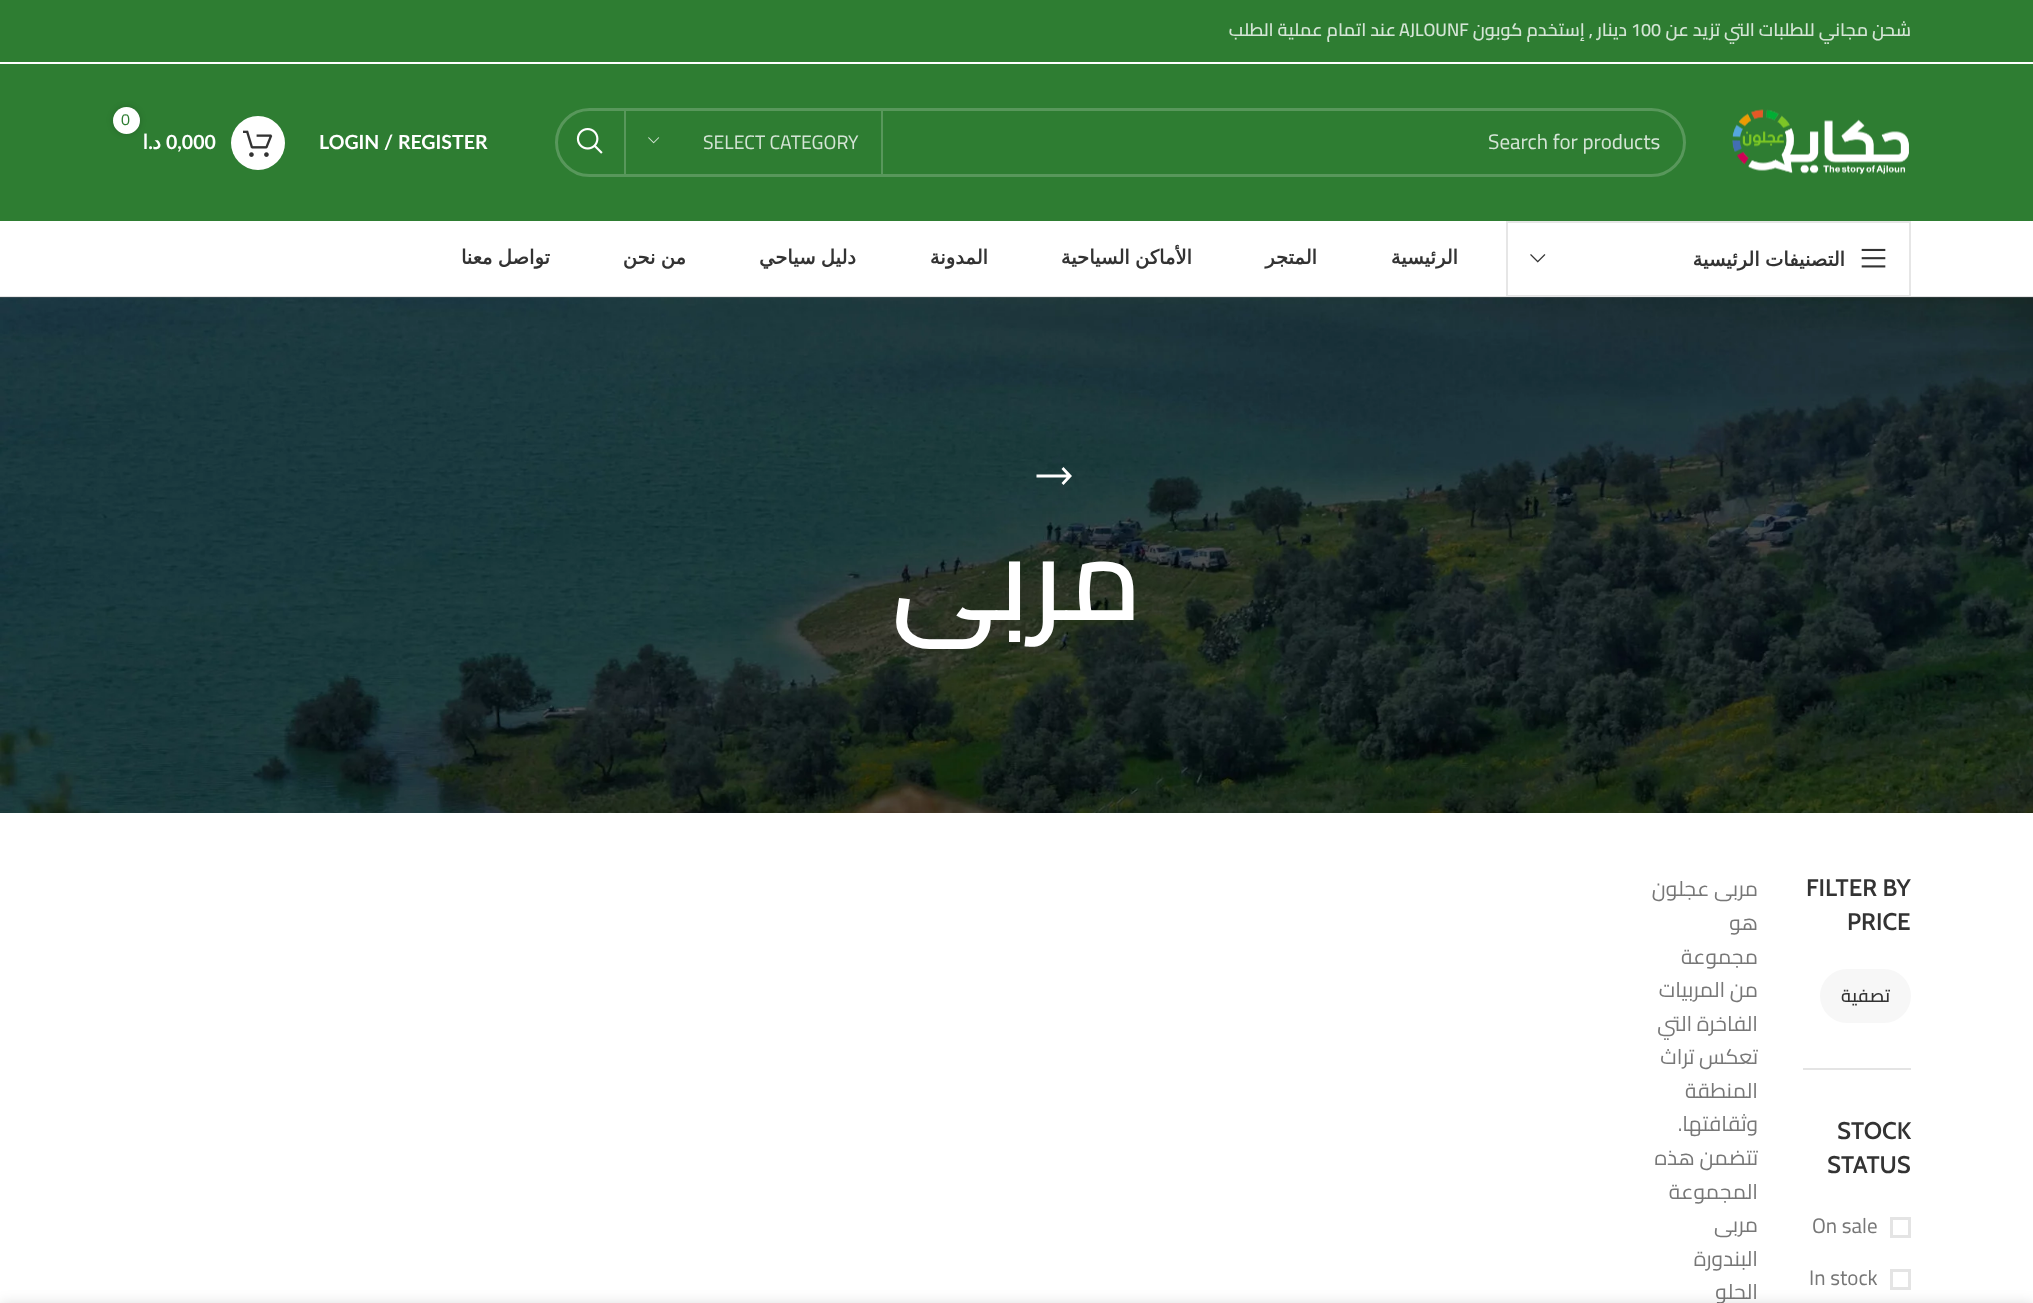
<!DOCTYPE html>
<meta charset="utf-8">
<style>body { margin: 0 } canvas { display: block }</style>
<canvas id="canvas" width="2033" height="1303"></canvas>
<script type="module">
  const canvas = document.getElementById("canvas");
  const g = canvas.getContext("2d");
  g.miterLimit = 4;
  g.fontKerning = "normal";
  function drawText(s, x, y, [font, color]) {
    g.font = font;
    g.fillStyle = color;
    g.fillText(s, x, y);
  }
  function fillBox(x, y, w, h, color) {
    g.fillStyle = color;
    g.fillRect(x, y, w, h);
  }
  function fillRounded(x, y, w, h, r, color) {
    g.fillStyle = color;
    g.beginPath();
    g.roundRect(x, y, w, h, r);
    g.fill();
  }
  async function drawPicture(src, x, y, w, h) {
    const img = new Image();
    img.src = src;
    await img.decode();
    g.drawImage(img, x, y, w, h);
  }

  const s1 = ["600 18px Cairo", "#D5E5D6"];
  const s2 = ["21px Cairo", "#D5E5D6"];
  const s3 = ["19.5px Cairo", "#D5E5D6"];
  const s4 = ["bold 19.5px Lato", "#FFFFFF"];
  const s5 = ["16px Cairo", "#2E7D32"];
  const s6 = ["bold 19.5px DejaVu Sans", "#FFFFFF"];
  const s7 = ["bold 19.5px DejaVu Sans", "#333333"];
  const s8 = ["600 117px Cairo", "#FFFFFF"];
  const s9 = ["600 24px Cabin", "#333333"];
  const s10 = ["600 18px Cairo", "#333333"];
  const s11 = ["21px Cairo", "#777777"];

  fillBox(0, 0, 2033, 1303, "#FFFFFF");
  fillBox(0, 0, 2033, 62, "#2E7D32");
  g.direction = "rtl";
  drawText("شحن مجاني للطلبات التي تزيد عن", 1911, 36, s1);
  g.direction = "ltr";
  drawText("100", 1631, 36, s1);
  g.direction = "rtl";
  drawText("دينار , إستخدم كوبون", 1627, 36, s1);
  g.direction = "ltr";
  drawText("AJLOUNF", 1399, 36, s1);
  g.direction = "rtl";
  drawText("عند اتمام عملية الطلب", 1396, 36, s1);
  fillBox(0, 64, 2033, 157, "#2E7D32");
  await drawPicture("pic1.png", 1732, 109, 177, 66);
  g.beginPath();
  g.roundRect(556.5, 109.5, 1128, 66, 33);
  g.strokeStyle = "#58975B";
  g.lineWidth = 3;
  g.stroke();
  g.direction = "ltr";
  drawText("Search for products", 1488, 149, s2);
  fillBox(881, 111, 2, 63, "#58975B");
  fillBox(624, 111, 2, 63, "#58975B");
  drawText("SELECT CATEGORY", 703, 149, s3);
  await drawPicture("pic2.png", 648, 137, 12, 7);
  await drawPicture("pic3.png", 576, 128, 27, 26);
  drawText("LOGIN / REGISTER", 319, 149, s4);
  g.beginPath();
  g.arc(258, 143, 27, 0, Math.PI * 2);
  g.fill();
  g.fillStyle = "rgba(0, 0, 0, 0.17)";
  g.filter = "blur(3px)";
  g.beginPath();
  g.roundRect(113, 107, 27, 27, 13.5);
  g.fill();
  g.filter = "none";
  g.fillStyle = "#FFFFFF";
  g.beginPath();
  g.arc(126.5, 120.5, 13.5, 0, Math.PI * 2);
  g.fill();
  drawText("0", 121, 125, s5);
  await drawPicture("pic4.png", 243, 130, 30, 27);
  drawText("0,000", 166, 149, s4);
  g.direction = "rtl";
  drawText("د", 161, 149, s6);
  drawText(".", 153, 149, s4);
  drawText("ا", 148, 149, s6);
  await drawPicture("pic7.png", 0, 297, 2033, 516);
  fillBox(0, 296, 2033, 2, "rgba(129, 129, 129, 0.2)");
  g.strokeStyle = "#E6E6E6";
  g.lineWidth = 2;
  g.strokeRect(1507, 222, 403, 74);
  await drawPicture("pic5.png", 1861, 248, 25, 20);
  g.wordSpacing = "-1px";
  drawText("التصنيفات الرئيسية", 1845, 266, s7);
  await drawPicture("pic6.png", 1530, 254, 16, 9);
  g.wordSpacing = "0px";
  drawText("الرئيسية", 1458, 264, s7);
  drawText("المتجر", 1317, 264, s7);
  g.wordSpacing = "-1px";
  drawText("الأماكن السياحية", 1192, 264, s7);
  g.wordSpacing = "0px";
  drawText("المدونة", 988, 264, s7);
  g.wordSpacing = "-1px";
  drawText("دليل سياحي", 856, 264, s7);
  drawText("من نحن", 686, 264, s7);
  drawText("تواصل معنا", 550, 264, s7);
  g.fillStyle = "#FFFFFF";
  g.beginPath();
  g.moveTo(1072, 476);
  g.lineTo(1063.5, 467);
  g.lineTo(1061.5, 469);
  g.lineTo(1066.5, 474.5);
  g.lineTo(1036.5, 474.5);
  g.lineTo(1036.5, 477.5);
  g.lineTo(1066.5, 477.5);
  g.lineTo(1061.5, 483);
  g.lineTo(1063.5, 485);
  g.closePath();
  g.fill();
  g.wordSpacing = "0px";
  drawText("مربى", 1142, 620, s8);
  fillBox(1803, 1068, 108, 2, "#E4E4E4");
  g.direction = "ltr";
  drawText("FILTER BY", 1806, 896, s9);
  drawText("PRICE", 1847, 930, s9);
  fillRounded(1820, 969, 91, 54, 27, "#F7F7F7");
  g.direction = "rtl";
  drawText("تصفية", 1890, 1002, s10);
  g.direction = "ltr";
  drawText("STOCK", 1837, 1139, s9);
  drawText("STATUS", 1827, 1173, s9);
  g.strokeStyle = "#E4E4E4";
  g.lineWidth = 3;
  g.strokeRect(1891.5, 1218.5, 18, 18);
  drawText("On sale", 1812, 1233, s11);
  g.strokeRect(1891.5, 1270.5, 18, 18);
  drawText("In stock", 1809, 1285, s11);
  g.direction = "rtl";
  drawText("مربى عجلون", 1758, 896, s11);
  drawText("هو", 1758, 930, s11);
  drawText("مجموعة", 1758, 964, s11);
  drawText("من المربيات", 1758, 997, s11);
  drawText("الفاخرة التي", 1758, 1031, s11);
  drawText("تعكس تراث", 1758, 1064, s11);
  drawText("المنطقة", 1758, 1098, s11);
  drawText("وثقافتها.", 1758, 1131, s11);
  drawText("تتضمن هذه", 1758, 1165, s11);
  drawText("المجموعة", 1758, 1199, s11);
  drawText("مربى", 1758, 1232, s11);
  drawText("البندورة", 1758, 1266, s11);
  drawText("الحلو", 1758, 1299, s11);
  g.fillStyle = "rgba(0, 0, 0, 0.14)";
  g.filter = "blur(7px)";
  g.beginPath();
  g.rect(0, 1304, 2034, 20);
  g.fill();
  g.filter = "none";
</script>
